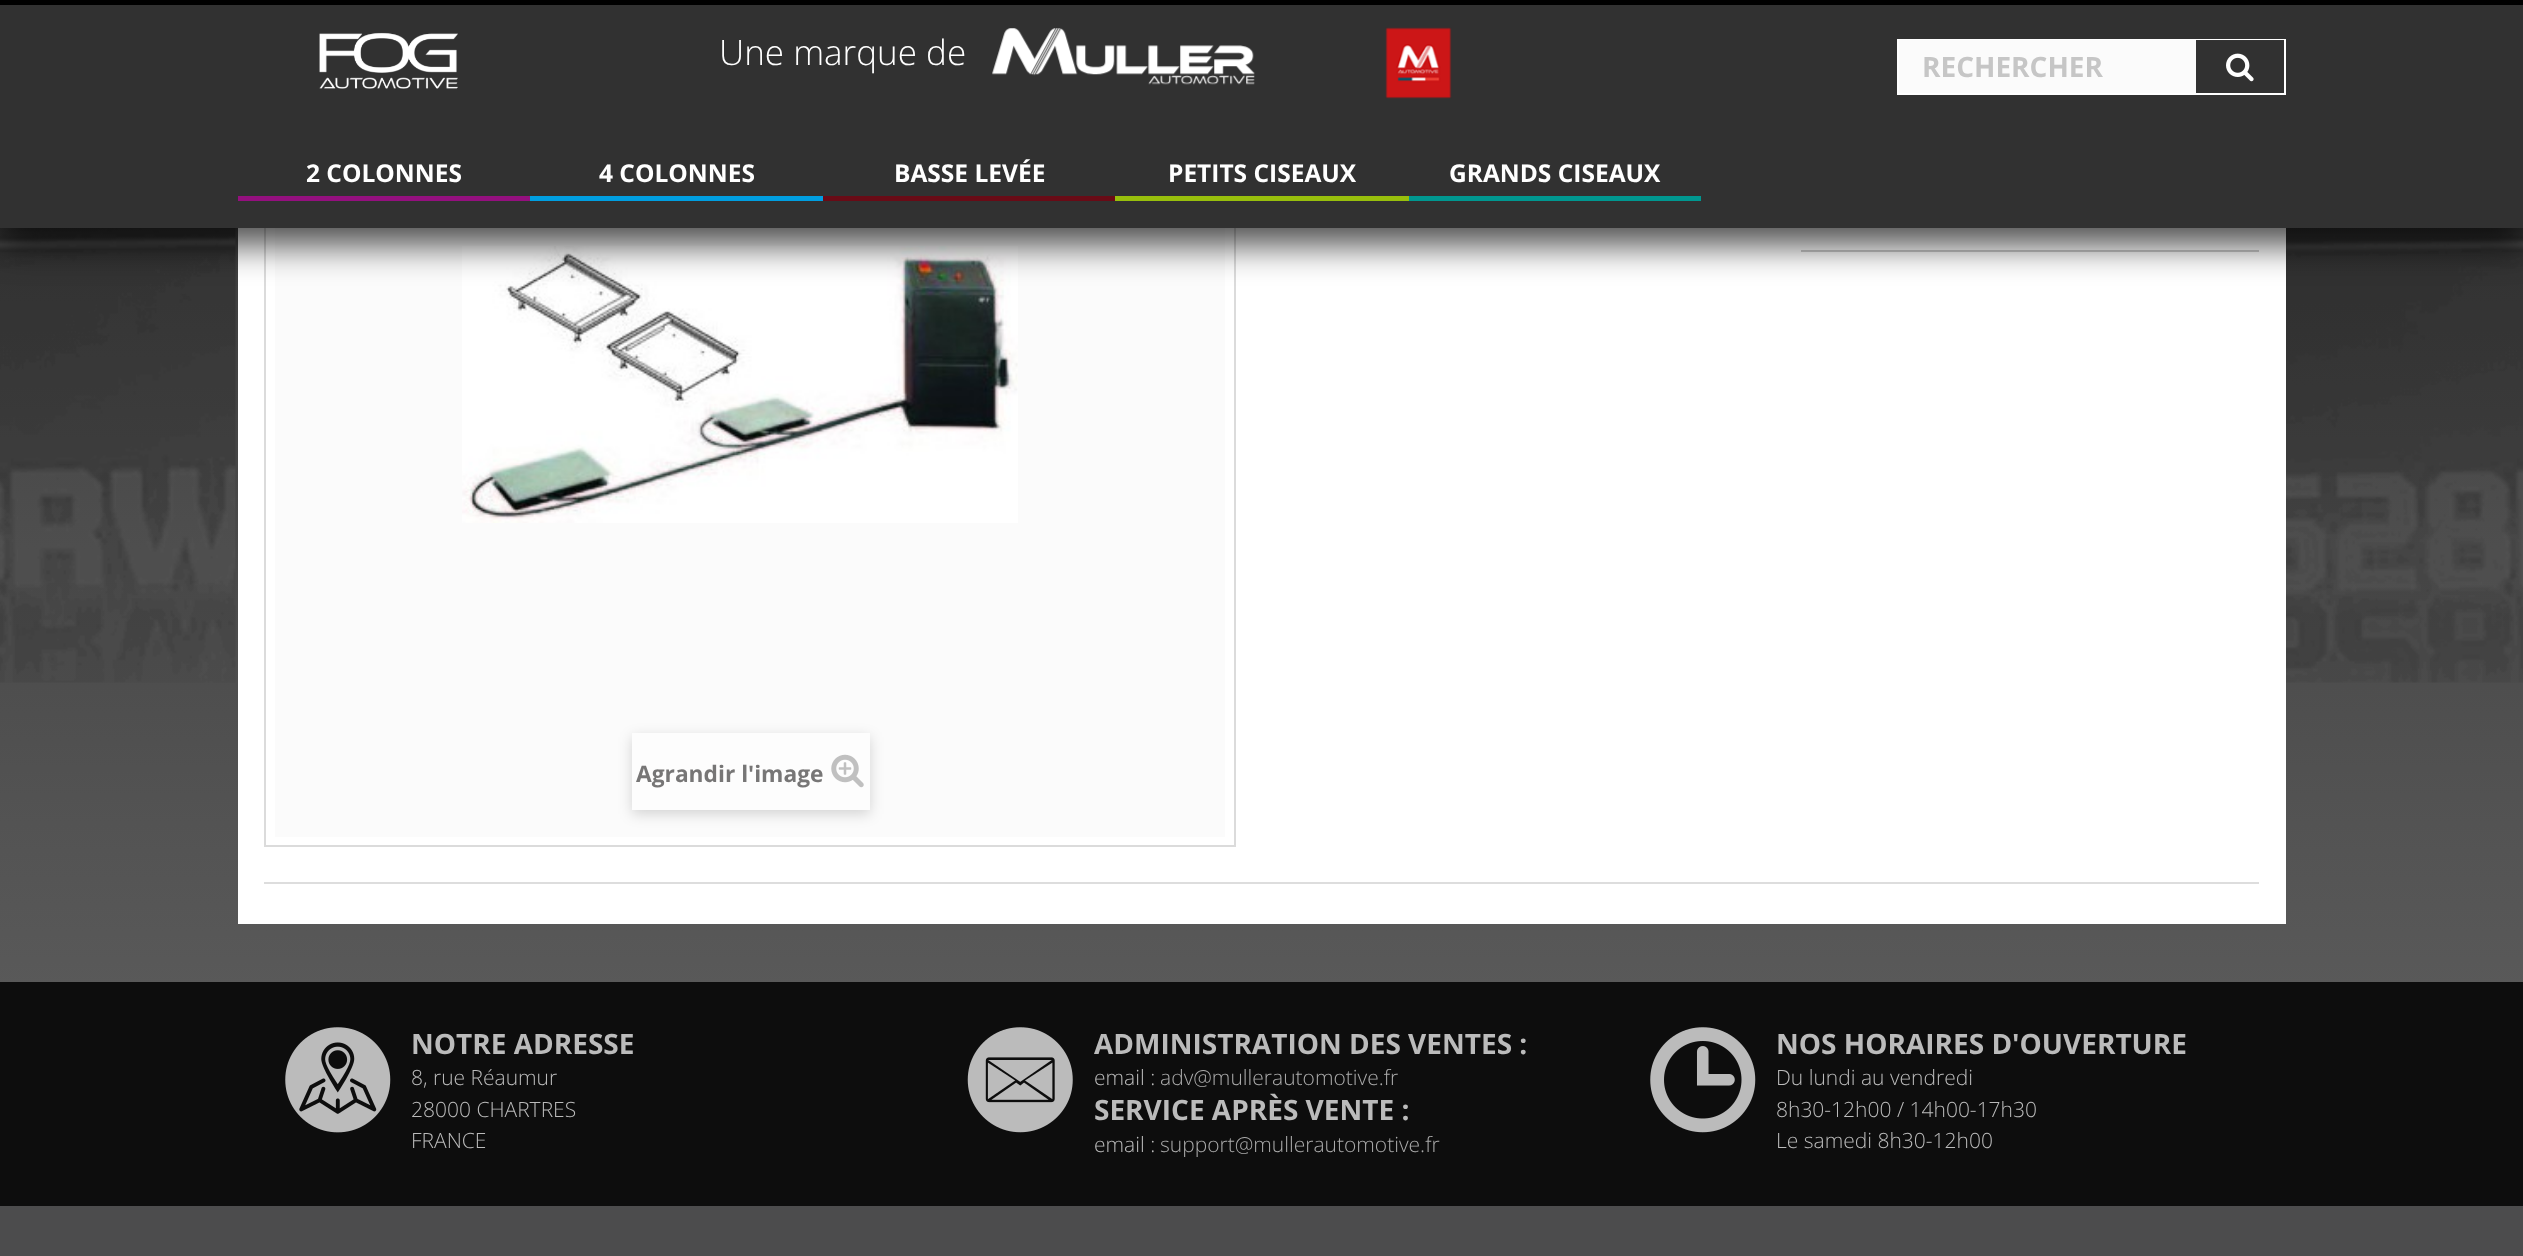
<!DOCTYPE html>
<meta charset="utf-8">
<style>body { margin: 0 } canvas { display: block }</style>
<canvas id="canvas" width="2523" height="1256"></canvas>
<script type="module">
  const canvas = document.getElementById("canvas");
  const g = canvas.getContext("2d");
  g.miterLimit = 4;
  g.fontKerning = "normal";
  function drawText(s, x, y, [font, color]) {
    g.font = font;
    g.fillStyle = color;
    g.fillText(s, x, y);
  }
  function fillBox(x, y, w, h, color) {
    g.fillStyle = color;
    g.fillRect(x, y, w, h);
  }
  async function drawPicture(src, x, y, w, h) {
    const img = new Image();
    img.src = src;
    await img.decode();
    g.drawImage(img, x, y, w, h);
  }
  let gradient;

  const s1 = ["300 35px Open Sans", "#FFFFFF"];
  const s2 = ["bold 28px Open Sans", "#C6C6C6"];
  const s3 = ["bold 24.5px Open Sans", "#FFFFFF"];
  const s4 = ["bold 22.75px Open Sans", "#777676"];
  const s5 = ["bold 28px Open Sans", "#BBBBBB"];
  const s6 = ["300 21px Open Sans", "#BBBBBB"];
  const s7 = ["300 21px Open Sans", "#AAAAAA"];

  fillBox(0, 0, 2523, 1256, "#FFFFFF");
  gradient = g.createLinearGradient(1262, -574, 1262, 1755);
  gradient.addColorStop(0.2, "#313131");
  gradient.addColorStop(1, "#757575");
  g.fillStyle = gradient;
  g.fillRect(0, 228, 2523, 754);
  await drawPicture("pic10.png", 0, 228, 2523, 455);
  fillBox(238, 228, 2048, 696, "#FFFFFF");
  fillBox(1801, 250, 458, 2, "#CCCCCC");
  g.strokeStyle = "#DBDBDB";
  g.lineWidth = 2;
  g.strokeRect(265, -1, 970, 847);
  fillBox(275, 228, 950, 609, "#FBFBFB");
  await drawPicture("pic5.png", 462, 246, 556, 277);
  g.fillStyle = "rgba(0, 0, 0, 0.7)";
  g.filter = "blur(17.5px)";
  g.beginPath();
  g.rect(0, -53, 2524, 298);
  g.fill();
  g.filter = "none";
  fillBox(0, 5, 2523, 223, "#313131");
  fillBox(0, 0, 2523, 5, "#000000");
  await drawPicture("pic1.png", 319, 32, 139, 57);
  drawText("Une marque de", 719, 65, s1);
  await drawPicture("pic2.png", 992, 28, 263, 57);
  await drawPicture("pic3.png", 1385, 27, 67, 72);
  g.strokeStyle = "#FFFFFF";
  g.strokeRect(1898, 40, 387, 54);
  fillBox(1899, 40, 297, 53, "#FBFBFB");
  drawText("RECHERCHER", 1922, 77, s2);
  fillBox(2196, 40, 88, 1, "#333333");
  await drawPicture("pic4.png", 2226, 53, 28, 29);
  drawText("2 COLONNES", 306, 182, s3);
  fillBox(238, 196, 292, 5, "#94107E");
  drawText("4 COLONNES", 599, 182, s3);
  fillBox(530, 196, 293, 5, "#009EE0");
  drawText("BASSE LEVÉE", 894, 182, s3);
  fillBox(823, 196, 292, 5, "#690B16");
  drawText("PETITS CISEAUX", 1168, 182, s3);
  fillBox(1115, 196, 294, 5, "#98BF0C");
  drawText("GRANDS CISEAUX", 1449, 182, s3);
  fillBox(1409, 196, 292, 5, "#009790");
  g.save();
  g.beginPath();
  g.moveTo(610, 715);
  g.lineTo(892, 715);
  g.lineTo(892, 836);
  g.lineTo(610, 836);
  g.closePath();
  g.moveTo(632, 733);
  g.lineTo(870, 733);
  g.lineTo(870, 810);
  g.lineTo(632, 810);
  g.closePath();
  g.clip("evenodd");
  g.fillStyle = "rgba(0, 0, 0, 0.16)";
  g.filter = "blur(7px)";
  g.beginPath();
  g.rect(632, 737, 238, 77);
  g.fill();
  g.filter = "none";
  g.restore();
  fillBox(632, 733, 238, 77, "rgba(255, 255, 255, 0.5)");
  drawText("Agrandir l'image", 636, 782, s4);
  await drawPicture("pic6.png", 831, 754, 33, 34);
  fillBox(264, 882, 1995, 2, "#DDDDDD");
  fillBox(0, 1206, 2523, 50, "#4C4C4D");
  fillBox(0, 982, 2523, 224, "#0D0D0D");
  await drawPicture("pic7.png", 285, 1027, 106, 106);
  drawText("NOTRE ADRESSE", 411, 1054, s5);
  drawText("8, rue Réaumur", 411, 1085, s6);
  drawText("28000 CHARTRES", 411, 1117, s6);
  drawText("FRANCE", 411, 1148, s6);
  await drawPicture("pic8.png", 967, 1027, 106, 106);
  drawText("ADMINISTRATION DES VENTES :", 1094, 1054, s5);
  drawText("email :", 1094, 1085, s6);
  drawText("adv@mullerautomotive.fr", 1160, 1085, s7);
  drawText("SERVICE APRÈS VENTE :", 1094, 1120, s5);
  drawText("email :", 1094, 1152, s6);
  drawText("support@mullerautomotive.fr", 1160, 1152, s7);
  await drawPicture("pic9.png", 1650, 1027, 106, 106);
  drawText("NOS HORAIRES D'OUVERTURE", 1776, 1054, s5);
  drawText("Du lundi au vendredi", 1776, 1085, s6);
  drawText("8h30-12h00 / 14h00-17h30", 1776, 1117, s6);
  drawText("Le samedi 8h30-12h00", 1776, 1148, s6);
</script>
